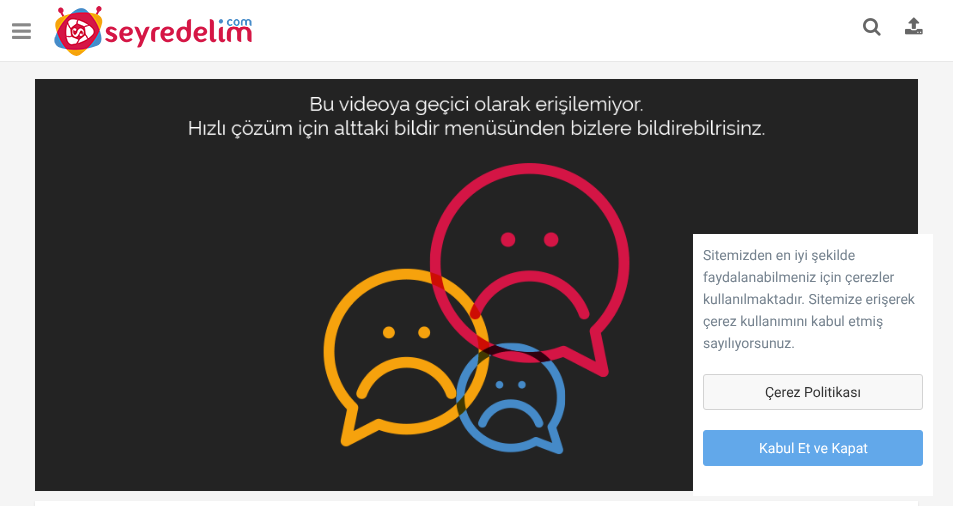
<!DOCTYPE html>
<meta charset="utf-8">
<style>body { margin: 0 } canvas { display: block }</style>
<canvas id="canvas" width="953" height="506"></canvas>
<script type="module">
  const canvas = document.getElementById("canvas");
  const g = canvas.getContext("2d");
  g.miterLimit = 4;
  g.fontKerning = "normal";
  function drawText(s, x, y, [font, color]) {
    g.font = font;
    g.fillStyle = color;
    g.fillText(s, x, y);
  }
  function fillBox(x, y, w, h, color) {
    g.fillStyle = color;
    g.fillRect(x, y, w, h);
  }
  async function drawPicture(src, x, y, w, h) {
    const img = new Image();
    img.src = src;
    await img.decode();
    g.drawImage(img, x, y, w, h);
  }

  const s1 = ["14px Roboto", "#76838F"];
  const s2 = ["14px Roboto", "#333333"];
  const s3 = ["14px Roboto", "#FFFFFF"];

  fillBox(0, 0, 953, 506, "#F5F5F5");
  fillBox(0, 0, 953, 61, "#FFFFFF");
  fillBox(0, 61, 953, 1, "#E8E8E8");
  await drawPicture("pic1.png", 12, 23, 19, 16);
  await drawPicture("pic2.png", 54, 6, 198, 50);
  await drawPicture("pic3.png", 863, 18, 18, 18);
  await drawPicture("pic4.png", 905, 17, 18, 18);
  fillBox(35, 79, 883, 412, "#232323");
  await drawPicture("pic5.png", 189, 96, 576, 359);
  g.fillStyle = "rgba(0, 0, 0, 0.1)";
  g.filter = "blur(1px)";
  g.beginPath();
  g.rect(35, 502, 883, 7);
  g.fill();
  g.filter = "none";
  fillBox(35, 501, 883, 5, "#FFFFFF");
  fillBox(693, 234, 240, 262, "#FFFFFF");
  drawText("Sitemizden en iyi şekilde", 703, 260, s1);
  drawText("faydalanabilmeniz için çerezler", 703, 282, s1);
  drawText("kullanılmaktadır. Sitemize erişerek", 703, 304, s1);
  drawText("çerez kullanımını kabul etmiş", 703, 326, s1);
  drawText("sayılıyorsunuz.", 703, 348, s1);
  g.fillStyle = "#F8F8F8";
  g.beginPath();
  g.roundRect(703.5, 374.5, 219, 35, 2.5);
  g.fill();
  g.strokeStyle = "#D3D3D3";
  g.stroke();
  drawText("Çerez Politikası", 765, 397, s2);
  g.fillStyle = "#62A8EA";
  g.beginPath();
  g.roundRect(703.5, 430.5, 219, 35, 2.5);
  g.fill();
  g.strokeStyle = "#62A8EA";
  g.stroke();
  drawText("Kabul Et ve Kapat", 759, 453, s3);
</script>
